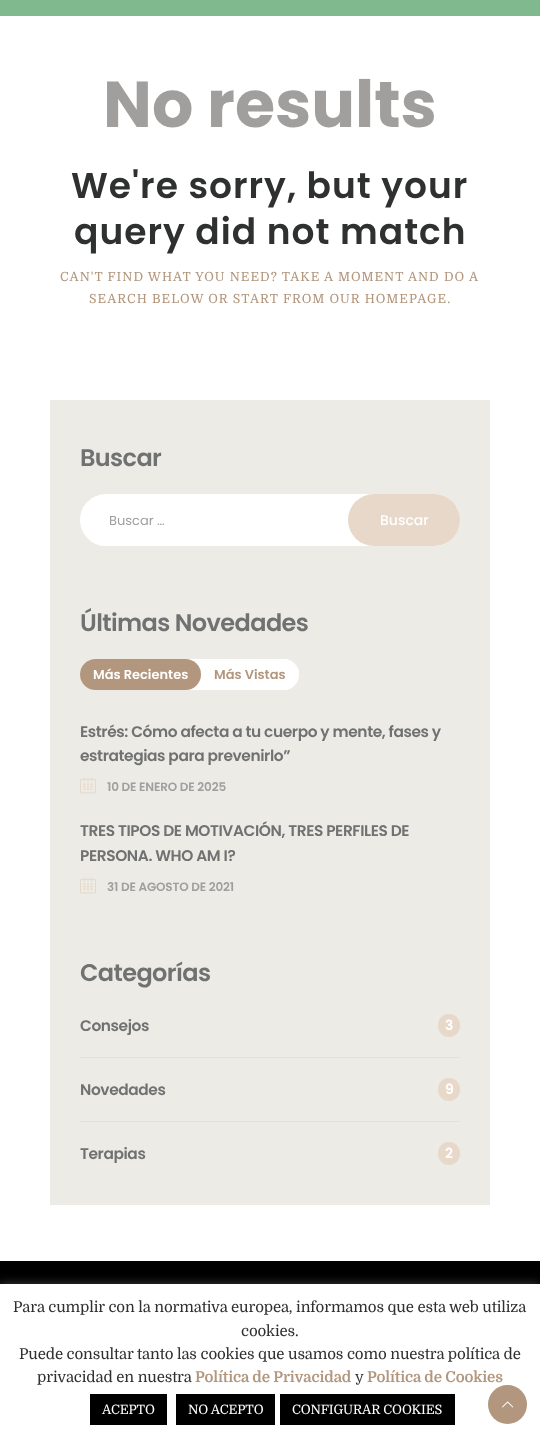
<!DOCTYPE html>
<meta charset="utf-8">
<style>body { margin: 0 } canvas { display: block }</style>
<canvas id="canvas" width="540" height="1437"></canvas>
<script type="module">
  const canvas = document.getElementById("canvas");
  const g = canvas.getContext("2d");
  g.miterLimit = 4;
  g.fontKerning = "normal";
  function drawText(s, x, y, [font, color]) {
    g.font = font;
    g.fillStyle = color;
    g.fillText(s, x, y);
  }
  function fillBox(x, y, w, h, color) {
    g.fillStyle = color;
    g.fillRect(x, y, w, h);
  }
  function fillRounded(x, y, w, h, r, color) {
    g.fillStyle = color;
    g.beginPath();
    g.roundRect(x, y, w, h, r);
    g.fill();
  }
  async function drawPicture(src, x, y, w, h) {
    const img = new Image();
    img.src = src;
    await img.decode();
    g.drawImage(img, x, y, w, h);
  }

  const s1 = ["bold 65px Poppins", "#A09F9D"];
  const s2 = ["600 36px Poppins", "#2F3030"];
  const s3 = ["12.6px Domine", "#B2967D"];
  const s4 = ["600 24px Poppins", "#707171"];
  const s5 = ["13px Poppins", "#A09F9D"];
  const s6 = ["500 14px Poppins", "#FFFFFF"];
  const s7 = ["600 13px Poppins", "#FFFFFF"];
  const s8 = ["600 13px Poppins", "#B2967D"];
  const s9 = ["600 15.4px Poppins", "#707171"];
  const s10 = ["600 12px Poppins", "#A09F9D"];
  const s11 = ["600 14px Poppins", "#FFFFFF"];
  const s12 = ["15px Domine", "#2F3030"];
  const s13 = ["bold 15px Domine", "#B2967D"];
  const s14 = ["13px Domine", "#FFFFFF"];

  fillBox(0, 0, 540, 1437, "#FFFFFF");
  fillBox(0, 0, 540, 16, "#7FB98D");
  drawText("No results", 103, 127, s1);
  g.letterSpacing = "1px";
  drawText("We're sorry, but your", 71, 198, s2);
  drawText("query did not match", 74, 244, s2);
  drawText("CAN'T FIND WHAT YOU NEED? TAKE A MOMENT AND DO A", 60, 281, s3);
  drawText("SEARCH BELOW OR START FROM OUR HOMEPAGE.", 89, 303, s3);
  fillBox(50, 400, 440, 805, "#ECEBE6");
  g.letterSpacing = "-0.6px";
  drawText("Buscar", 80, 466, s4);
  g.fillStyle = "#FFFFFF";
  g.beginPath();
  g.roundRect(81, 495, 378, 50, 25);
  g.fill();
  g.strokeStyle = "#FFFFFF";
  g.lineWidth = 2;
  g.stroke();
  g.letterSpacing = "0px";
  drawText("Buscar …", 109, 525, s5);
  fillRounded(348, 494, 112, 52, 26, "#E7D8C9");
  drawText("Buscar", 380, 525, s6);
  g.letterSpacing = "-0.6px";
  drawText("Últimas Novedades", 80, 631, s4);
  fillRounded(80, 659, 219, 31, 15.5, "#FFFFFF");
  fillRounded(80, 659, 121, 31, 15.5, "#B2967D");
  g.letterSpacing = "0px";
  drawText("Más Recientes", 93, 679, s7);
  fillRounded(201, 659, 98, 31, 15.5, "#FFFFFF");
  drawText("Más Vistas", 214, 679, s8);
  g.letterSpacing = "-0.4px";
  drawText("Estrés: Cómo afecta a tu cuerpo y mente, fases y", 80, 737, s9);
  drawText("estrategias para prevenirlo”", 80, 761, s9);
  await drawPicture("pic1.png", 80, 777, 16, 17);
  g.letterSpacing = "-0.13px";
  drawText("10 DE ENERO DE 2025", 107, 791, s10);
  g.letterSpacing = "-0.4px";
  drawText("TRES TIPOS DE MOTIVACIÓN, TRES PERFILES DE", 80, 836, s9);
  drawText("PERSONA. WHO AM I?", 80, 861, s9);
  await drawPicture("pic1.png", 80, 877, 16, 17);
  g.letterSpacing = "-0.13px";
  drawText("31 DE AGOSTO DE 2021", 107, 891, s10);
  g.letterSpacing = "-0.6px";
  drawText("Categorías", 80, 981, s4);
  g.letterSpacing = "-0.4px";
  drawText("Consejos", 80, 1031, s9);
  fillRounded(438, 1014, 22, 23, 11, "#E7D8C9");
  drawText("3", 445, 1030, s11);
  fillBox(80, 1057, 380, 1, "#E2E1DC");
  drawText("Novedades", 80, 1095, s9);
  fillRounded(438, 1078, 22, 23, 11, "#E7D8C9");
  drawText("9", 445, 1094, s11);
  fillBox(80, 1121, 380, 1, "#E2E1DC");
  drawText("Terapias", 80, 1159, s9);
  fillRounded(438, 1142, 22, 23, 11, "#E7D8C9");
  drawText("2", 445, 1158, s11);
  fillBox(0, 1261, 540, 23, "#000000");
  g.fillStyle = "rgba(172, 171, 171, 0.3)";
  g.filter = "blur(5px)";
  g.beginPath();
  g.rect(0, 1283, 540, 153);
  g.fill();
  g.filter = "none";
  fillBox(0, 1284, 540, 153, "#FFFFFF");
  g.letterSpacing = "-0.13px";
  drawText("Para cumplir con la normativa europea, informamos que esta web utiliza", 13, 1312, s12);
  drawText("cookies.", 241, 1336, s12);
  drawText("Puede consultar tanto las cookies que usamos como nuestra política de", 19, 1359, s12);
  drawText("privacidad en nuestra", 37, 1382, s12);
  drawText("Política de Privacidad", 195, 1382, s13);
  drawText("y", 355, 1382, s12);
  drawText("Política de Cookies", 367, 1382, s13);
  fillBox(90, 1394, 77, 31, "#000000");
  drawText("ACEPTO", 102, 1414, s14);
  fillBox(176, 1394, 99, 31, "#000000");
  drawText("NO ACEPTO", 188, 1414, s14);
  fillBox(280, 1394, 175, 31, "#000000");
  drawText("CONFIGURAR COOKIES", 292, 1414, s14);
  g.fillStyle = "#B2967D";
  g.beginPath();
  g.arc(507.5, 1404.5, 19.5, 0, Math.PI * 2);
  g.fill();
  await drawPicture("pic2.png", 502, 1401, 12, 7);
</script>
